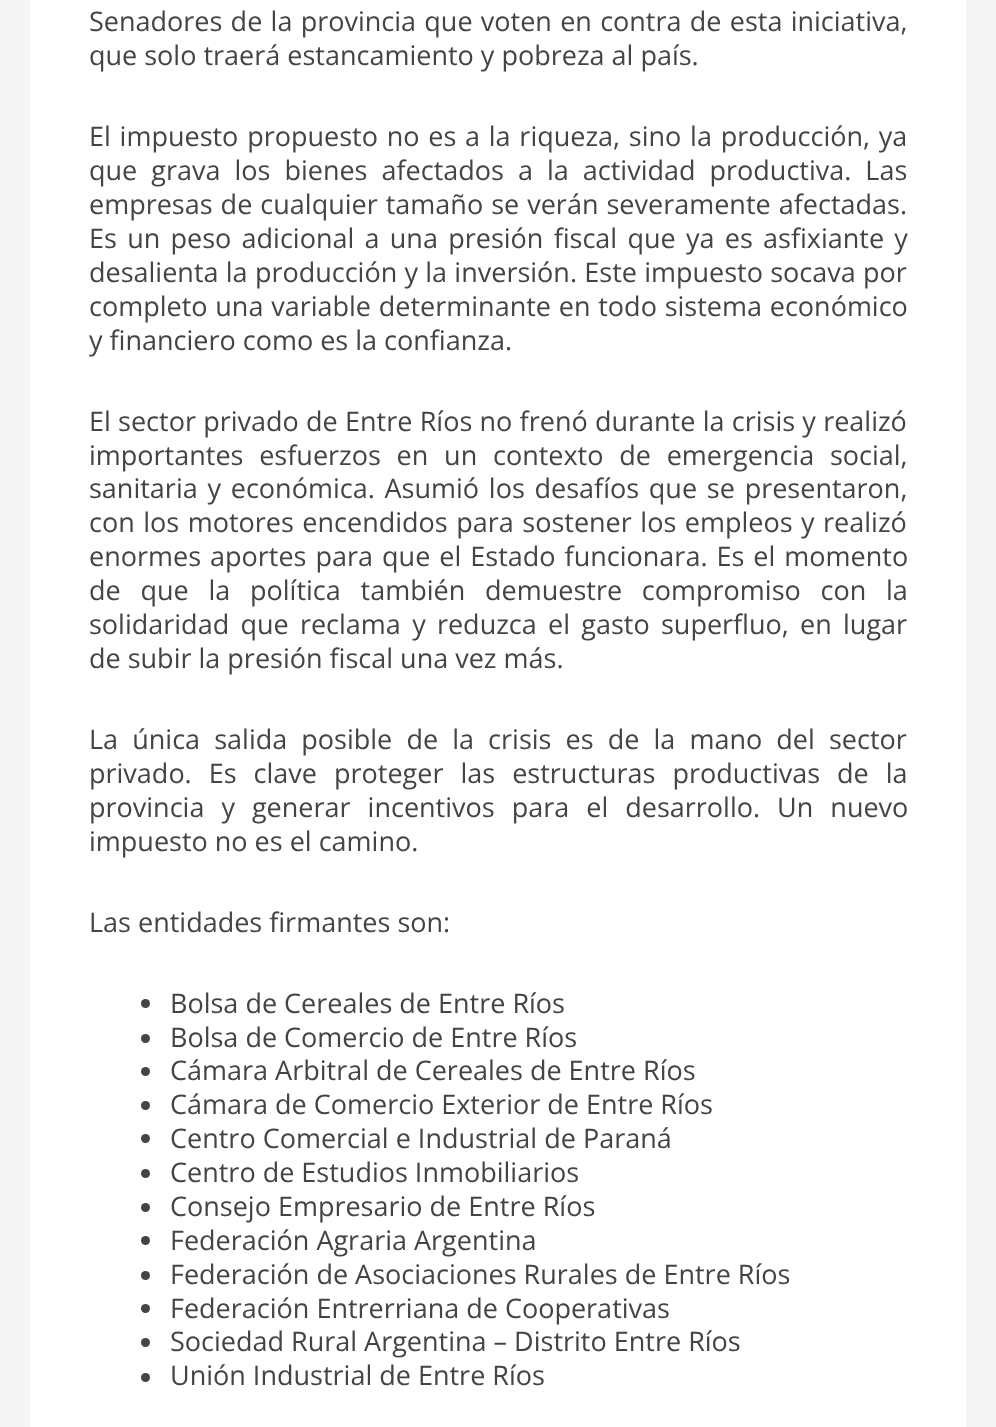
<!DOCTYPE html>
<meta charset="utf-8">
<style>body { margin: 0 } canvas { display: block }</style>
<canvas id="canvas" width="996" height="1427"></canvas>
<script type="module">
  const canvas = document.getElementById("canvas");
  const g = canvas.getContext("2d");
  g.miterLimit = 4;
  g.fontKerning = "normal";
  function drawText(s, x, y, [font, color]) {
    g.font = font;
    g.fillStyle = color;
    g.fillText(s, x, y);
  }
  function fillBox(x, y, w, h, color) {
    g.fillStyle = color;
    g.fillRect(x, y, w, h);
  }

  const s1 = ["27px Open Sans", "#444444"];

  fillBox(0, 0, 996, 1427, "#F5F5F5");
  fillBox(30, 0, 936, 1427, "#FFFFFF");
  g.wordSpacing = "1.25px";
  drawText("Senadores de la provincia que voten en contra de esta iniciativa,", 89, 31, s1);
  g.wordSpacing = "0px";
  drawText("que solo traerá estancamiento y pobreza al país.", 89, 65, s1);
  g.wordSpacing = "1.75px";
  drawText("El impuesto propuesto no es a la riqueza, sino la producción, ya", 89, 146, s1);
  g.wordSpacing = "7px";
  drawText("que grava los bienes afectados a la actividad productiva. Las", 89, 180, s1);
  g.wordSpacing = "1px";
  drawText("empresas de cualquier tamaño se verán severamente afectadas.", 89, 214, s1);
  g.wordSpacing = "3.25px";
  drawText("Es un peso adicional a una presión fiscal que ya es asfixiante y", 89, 248, s1);
  g.wordSpacing = "0.25px";
  drawText("desalienta la producción y la inversión. Este impuesto socava por", 89, 282, s1);
  g.wordSpacing = "0.75px";
  drawText("completo una variable determinante en todo sistema económico", 89, 316, s1);
  g.wordSpacing = "0px";
  drawText("y financiero como es la confianza.", 89, 350, s1);
  g.wordSpacing = "0.25px";
  drawText("El sector privado de Entre Ríos no frenó durante la crisis y realizó", 89, 431, s1);
  g.wordSpacing = "8.75px";
  drawText("importantes esfuerzos en un contexto de emergencia social,", 89, 465, s1);
  g.wordSpacing = "2.75px";
  drawText("sanitaria y económica. Asumió los desafíos que se presentaron,", 89, 498, s1);
  g.wordSpacing = "1.5px";
  drawText("con los motores encendidos para sostener los empleos y realizó", 89, 532, s1);
  g.wordSpacing = "2px";
  drawText("enormes aportes para que el Estado funcionara. Es el momento", 89, 566, s1);
  g.wordSpacing = "12.75px";
  drawText("de que la política también demuestre compromiso con la", 89, 600, s1);
  g.wordSpacing = "4.25px";
  drawText("solidaridad que reclama y reduzca el gasto superfluo, en lugar", 89, 634, s1);
  g.wordSpacing = "0px";
  drawText("de subir la presión fiscal una vez más.", 89, 668, s1);
  g.wordSpacing = "7.1px";
  drawText("La única salida posible de la crisis es de la mano del sector", 89, 749, s1);
  g.wordSpacing = "10px";
  drawText("privado. Es clave proteger las estructuras productivas de la", 89, 783, s1);
  drawText("provincia y generar incentivos para el desarrollo. Un nuevo", 89, 817, s1);
  g.wordSpacing = "0px";
  drawText("impuesto no es el camino.", 89, 851, s1);
  drawText("Las entidades firmantes son:", 89, 932, s1);
  g.beginPath();
  g.arc(145.5, 1003.5, 4.5, 0, Math.PI * 2);
  g.fill();
  drawText("Bolsa de Cereales de Entre Ríos", 170, 1013, s1);
  g.beginPath();
  g.arc(145.5, 1038.5, 4.5, 0, Math.PI * 2);
  g.fill();
  drawText("Bolsa de Comercio de Entre Ríos", 170, 1047, s1);
  g.beginPath();
  g.arc(145.5, 1071.5, 4.5, 0, Math.PI * 2);
  g.fill();
  drawText("Cámara Arbitral de Cereales de Entre Ríos", 170, 1080, s1);
  g.beginPath();
  g.arc(145.5, 1105.5, 4.5, 0, Math.PI * 2);
  g.fill();
  drawText("Cámara de Comercio Exterior de Entre Ríos", 170, 1114, s1);
  g.beginPath();
  g.arc(145.5, 1138.5, 4.5, 0, Math.PI * 2);
  g.fill();
  drawText("Centro Comercial e Industrial de Paraná", 170, 1148, s1);
  g.beginPath();
  g.arc(145.5, 1173.5, 4.5, 0, Math.PI * 2);
  g.fill();
  drawText("Centro de Estudios Inmobiliarios", 170, 1182, s1);
  g.beginPath();
  g.arc(145.5, 1207.5, 4.5, 0, Math.PI * 2);
  g.fill();
  drawText("Consejo Empresario de Entre Ríos", 170, 1216, s1);
  g.beginPath();
  g.arc(145.5, 1240.5, 4.5, 0, Math.PI * 2);
  g.fill();
  drawText("Federación Agraria Argentina", 170, 1250, s1);
  g.beginPath();
  g.arc(145.5, 1275.5, 4.5, 0, Math.PI * 2);
  g.fill();
  drawText("Federación de Asociaciones Rurales de Entre Ríos", 170, 1284, s1);
  g.beginPath();
  g.arc(145.5, 1308.5, 4.5, 0, Math.PI * 2);
  g.fill();
  drawText("Federación Entrerriana de Cooperativas", 170, 1318, s1);
  g.beginPath();
  g.arc(145.5, 1342.5, 4.5, 0, Math.PI * 2);
  g.fill();
  drawText("Sociedad Rural Argentina – Distrito Entre Ríos", 170, 1351, s1);
  g.beginPath();
  g.arc(145.5, 1377.5, 4.5, 0, Math.PI * 2);
  g.fill();
  drawText("Unión Industrial de Entre Ríos", 170, 1385, s1);
</script>
